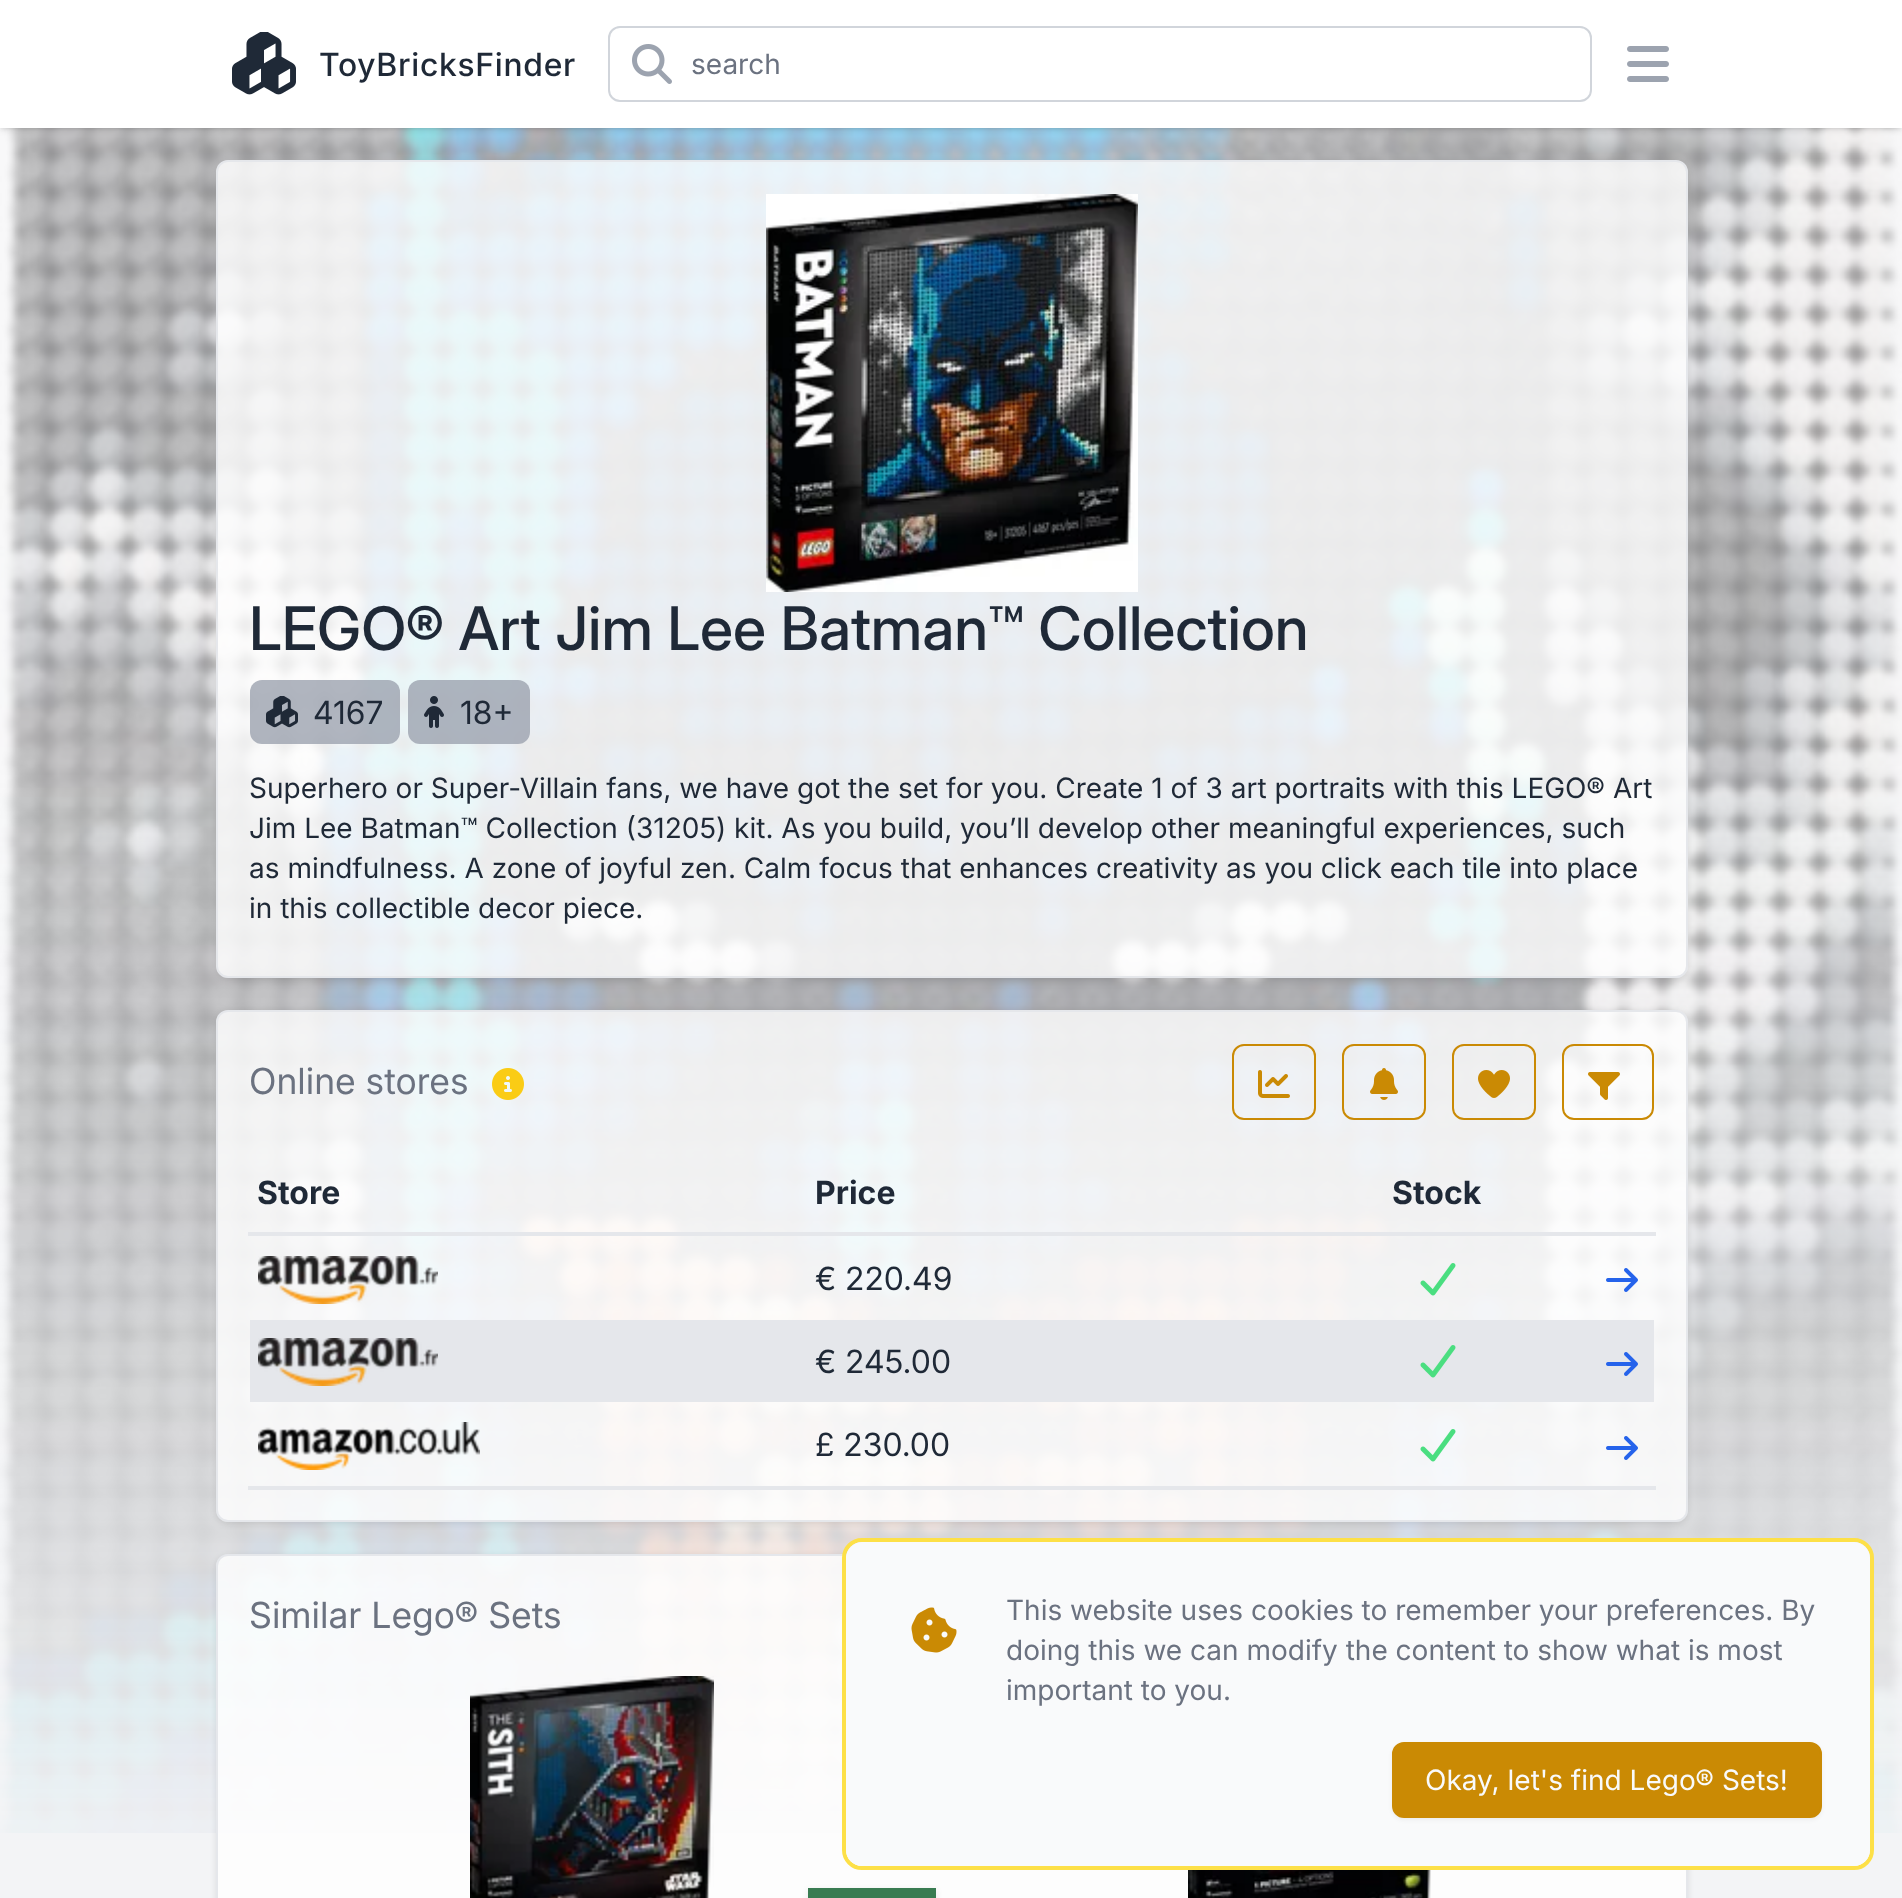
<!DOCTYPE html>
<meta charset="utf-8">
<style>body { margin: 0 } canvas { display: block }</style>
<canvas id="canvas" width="1902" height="1898"></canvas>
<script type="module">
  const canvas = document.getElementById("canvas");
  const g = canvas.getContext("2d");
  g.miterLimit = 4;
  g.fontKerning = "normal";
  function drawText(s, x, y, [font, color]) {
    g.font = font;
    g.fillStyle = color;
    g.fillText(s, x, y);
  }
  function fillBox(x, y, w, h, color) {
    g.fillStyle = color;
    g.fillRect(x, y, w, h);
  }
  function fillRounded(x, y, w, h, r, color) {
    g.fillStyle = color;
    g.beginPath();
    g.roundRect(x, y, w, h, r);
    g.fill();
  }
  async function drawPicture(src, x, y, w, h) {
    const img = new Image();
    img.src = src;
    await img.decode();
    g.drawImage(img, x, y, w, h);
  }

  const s1 = ["500 32px 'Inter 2'", "#1F2937"];
  const s2 = ["28px 'Inter 2'", "#6B7280"];
  const s3 = ["500 60px Inter", "#1F2937"];
  const s4 = ["32px Inter", "#1F2937"];
  const s5 = ["28px 'Inter 2'", "#1F2937"];
  const s6 = ["36px 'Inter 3'", "#6B7280"];
  const s7 = ["bold 32px Inter", "#1F2937"];
  const s8 = ["28px 'Inter 2'", "#F9FAFB"];

  fillBox(0, 0, 1902, 1898, "#F3F4F6");
  await drawPicture("pic4.png", 0, 128, 1902, 1705);
  g.fillStyle = "rgba(0, 0, 0, 0.1)";
  g.filter = "blur(2px)";
  g.beginPath();
  g.rect(2, 4, 1898, 124);
  g.fill();
  g.filter = "none";
  g.filter = "blur(3px)";
  g.beginPath();
  g.rect(0, 2, 1902, 128);
  g.fill();
  g.filter = "none";
  fillBox(0, 0, 1902, 128, "#FFFFFF");
  await drawPicture("pic1.png", 232, 32, 64, 63);
  g.letterSpacing = "0.75px";
  drawText("ToyBricksFinder", 319, 76, s1);
  g.beginPath();
  g.roundRect(609, 27, 982, 74, 11);
  g.strokeStyle = "#D1D5DB";
  g.lineWidth = 2;
  g.stroke();
  await drawPicture("pic2.png", 632, 44, 40, 40);
  g.letterSpacing = "0px";
  drawText("search", 691, 74, s2);
  await drawPicture("pic3.png", 1627, 46, 42, 36);
  g.save();
  g.beginPath();
  g.moveTo(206, 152);
  g.lineTo(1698, 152);
  g.lineTo(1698, 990);
  g.lineTo(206, 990);
  g.closePath();
  g.moveTo(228, 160);
  g.lineTo(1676, 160);
  g.bezierCurveTo(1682.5, 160, 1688, 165.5, 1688, 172);
  g.lineTo(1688, 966);
  g.bezierCurveTo(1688, 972.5, 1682.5, 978, 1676, 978);
  g.lineTo(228, 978);
  g.bezierCurveTo(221.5, 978, 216, 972.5, 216, 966);
  g.lineTo(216, 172);
  g.bezierCurveTo(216, 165.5, 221.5, 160, 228, 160);
  g.closePath();
  g.clip("evenodd");
  g.fillStyle = "rgba(0, 0, 0, 0.1)";
  g.filter = "blur(3px)";
  g.beginPath();
  g.roundRect(216, 162, 1472, 818, 12);
  g.fill();
  g.filter = "none";
  g.restore();
  g.fillStyle = "rgba(255, 255, 255, 0.8)";
  g.beginPath();
  g.roundRect(217, 161, 1470, 816, 11);
  g.fill();
  g.strokeStyle = "#E5E7EB";
  g.stroke();
  await drawPicture("pic5.png", 766, 194, 372, 398);
  drawText("LEGO® Art Jim Lee Batman™ Collection", 249, 650, s3);
  fillRounded(250, 680, 150, 64, 12, "rgba(156, 163, 175, 0.8)");
  await drawPicture("pic6.png", 266, 696, 32, 32);
  drawText("4167", 313, 724, s4);
  fillRounded(408, 680, 122, 64, 12, "rgba(156, 163, 175, 0.8)");
  await drawPicture("pic7.png", 424, 696, 20, 32);
  drawText("18+", 460, 724, s4);
  drawText("Superhero or Super-Villain fans, we have got the set for you. Create 1 of 3 art portraits with this LEGO® Art", 249, 798, s5);
  drawText("Jim Lee Batman™ Collection (31205) kit. As you build, you’ll develop other meaningful experiences, such", 249, 838, s5);
  drawText("as mindfulness. A zone of joyful zen. Calm focus that enhances creativity as you click each tile into place", 249, 878, s5);
  drawText("in this collectible decor piece.", 249, 918, s5);
  g.save();
  g.beginPath();
  g.moveTo(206, 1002);
  g.lineTo(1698, 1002);
  g.lineTo(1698, 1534);
  g.lineTo(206, 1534);
  g.closePath();
  g.moveTo(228, 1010);
  g.lineTo(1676, 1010);
  g.bezierCurveTo(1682.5, 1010, 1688, 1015.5, 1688, 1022);
  g.lineTo(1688, 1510);
  g.bezierCurveTo(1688, 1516.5, 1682.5, 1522, 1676, 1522);
  g.lineTo(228, 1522);
  g.bezierCurveTo(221.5, 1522, 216, 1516.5, 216, 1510);
  g.lineTo(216, 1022);
  g.bezierCurveTo(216, 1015.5, 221.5, 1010, 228, 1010);
  g.closePath();
  g.clip("evenodd");
  g.fillStyle = "rgba(0, 0, 0, 0.1)";
  g.filter = "blur(3px)";
  g.beginPath();
  g.roundRect(216, 1012, 1472, 512, 12);
  g.fill();
  g.filter = "none";
  g.restore();
  g.fillStyle = "rgba(255, 255, 255, 0.8)";
  g.beginPath();
  g.roundRect(217, 1011, 1470, 510, 11);
  g.fill();
  g.stroke();
  drawText("Online stores", 249, 1094, s6);
  await drawPicture("pic8.png", 492, 1068, 32, 32);
  g.beginPath();
  g.roundRect(1233, 1045, 82, 74, 11);
  g.strokeStyle = "#CA8A04";
  g.stroke();
  await drawPicture("pic9.png", 1258, 1070, 32, 28);
  g.beginPath();
  g.roundRect(1343, 1045, 82, 74, 11);
  g.stroke();
  await drawPicture("pic10.png", 1370, 1068, 28, 32);
  g.beginPath();
  g.roundRect(1453, 1045, 82, 74, 11);
  g.stroke();
  await drawPicture("pic11.png", 1478, 1070, 32, 28);
  g.beginPath();
  g.roundRect(1563, 1045, 90, 74, 11);
  g.stroke();
  await drawPicture("pic12.png", 1588, 1072, 32, 28);
  fillBox(248, 1232, 1408, 4, "#E5E7EB");
  drawText("Store", 257, 1204, s7);
  drawText("Price", 815, 1204, s7);
  drawText("Stock", 1392, 1204, s7);
  await drawPicture("pic13.png", 258, 1256, 180, 48);
  drawText("€ 220.49", 815, 1290, s4);
  await drawPicture("pic14.png", 1420, 1263, 36, 33);
  await drawPicture("pic15.png", 1606, 1268, 32, 24);
  fillBox(250, 1320, 1404, 82, "#E5E7EB");
  await drawPicture("pic16.png", 258, 1338, 180, 48);
  drawText("€ 245.00", 815, 1373, s4);
  await drawPicture("pic17.png", 1420, 1345, 36, 33);
  await drawPicture("pic18.png", 1606, 1352, 32, 24);
  await drawPicture("pic19.png", 258, 1422, 222, 48);
  drawText("£ 230.00", 815, 1456, s4);
  await drawPicture("pic20.png", 1420, 1429, 36, 33);
  await drawPicture("pic21.png", 1606, 1436, 32, 24);
  fillBox(248, 1486, 1408, 4, "#E5E7EB");
  g.save();
  g.beginPath();
  g.moveTo(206, 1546);
  g.lineTo(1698, 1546);
  g.lineTo(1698, 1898);
  g.lineTo(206, 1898);
  g.closePath();
  g.moveTo(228, 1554);
  g.lineTo(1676, 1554);
  g.bezierCurveTo(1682.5, 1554, 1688, 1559.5, 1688, 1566);
  g.lineTo(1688, 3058);
  g.bezierCurveTo(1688, 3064.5, 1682.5, 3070, 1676, 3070);
  g.lineTo(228, 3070);
  g.bezierCurveTo(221.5, 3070, 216, 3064.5, 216, 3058);
  g.lineTo(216, 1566);
  g.bezierCurveTo(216, 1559.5, 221.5, 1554, 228, 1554);
  g.closePath();
  g.clip("evenodd");
  g.fillStyle = "rgba(0, 0, 0, 0.1)";
  g.filter = "blur(3px)";
  g.beginPath();
  g.roundRect(216, 1556, 1472, 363, 12);
  g.fill();
  g.filter = "none";
  g.restore();
  g.fillStyle = "rgba(255, 255, 255, 0.8)";
  g.beginPath();
  g.roundRect(217, 1555, 1470, 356, 11);
  g.fill();
  g.strokeStyle = "#E5E7EB";
  g.stroke();
  drawText("Similar Lego® Sets", 249, 1628, s6);
  await drawPicture("pic22.png", 470, 1676, 244, 222);
  g.fillStyle = "rgba(38, 38, 38, 0.1)";
  g.filter = "blur(3px)";
  g.beginPath();
  g.rect(808, 1890, 128, 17);
  g.fill();
  g.filter = "none";
  fillBox(808, 1888, 128, 10, "#397C52");
  await drawPicture("pic23.png", 1188, 1870, 243, 28);
  g.beginPath();
  g.roundRect(844, 1540, 1028, 328, 18);
  g.strokeStyle = "#FDE047";
  g.lineWidth = 4;
  g.stroke();
  fillRounded(846, 1542, 1024, 324, 16, "#F9FAFB");
  await drawPicture("pic24.png", 911, 1607, 46, 46);
  drawText("This website uses cookies to remember your preferences. By", 1006, 1620, s2);
  drawText("doing this we can modify the content to show what is most", 1006, 1660, s2);
  drawText("important to you.", 1006, 1700, s2);
  g.fillStyle = "rgba(0, 0, 0, 0.05)";
  g.filter = "blur(2px)";
  g.beginPath();
  g.roundRect(1392, 1744, 430, 76, 12);
  g.fill();
  g.filter = "none";
  g.fillStyle = "#CA8A04";
  g.beginPath();
  g.roundRect(1393, 1743, 428, 74, 11);
  g.fill();
  g.strokeStyle = "#CA8A04";
  g.lineWidth = 2;
  g.stroke();
  drawText("Okay, let's find Lego® Sets!", 1425, 1790, s8);
</script>
